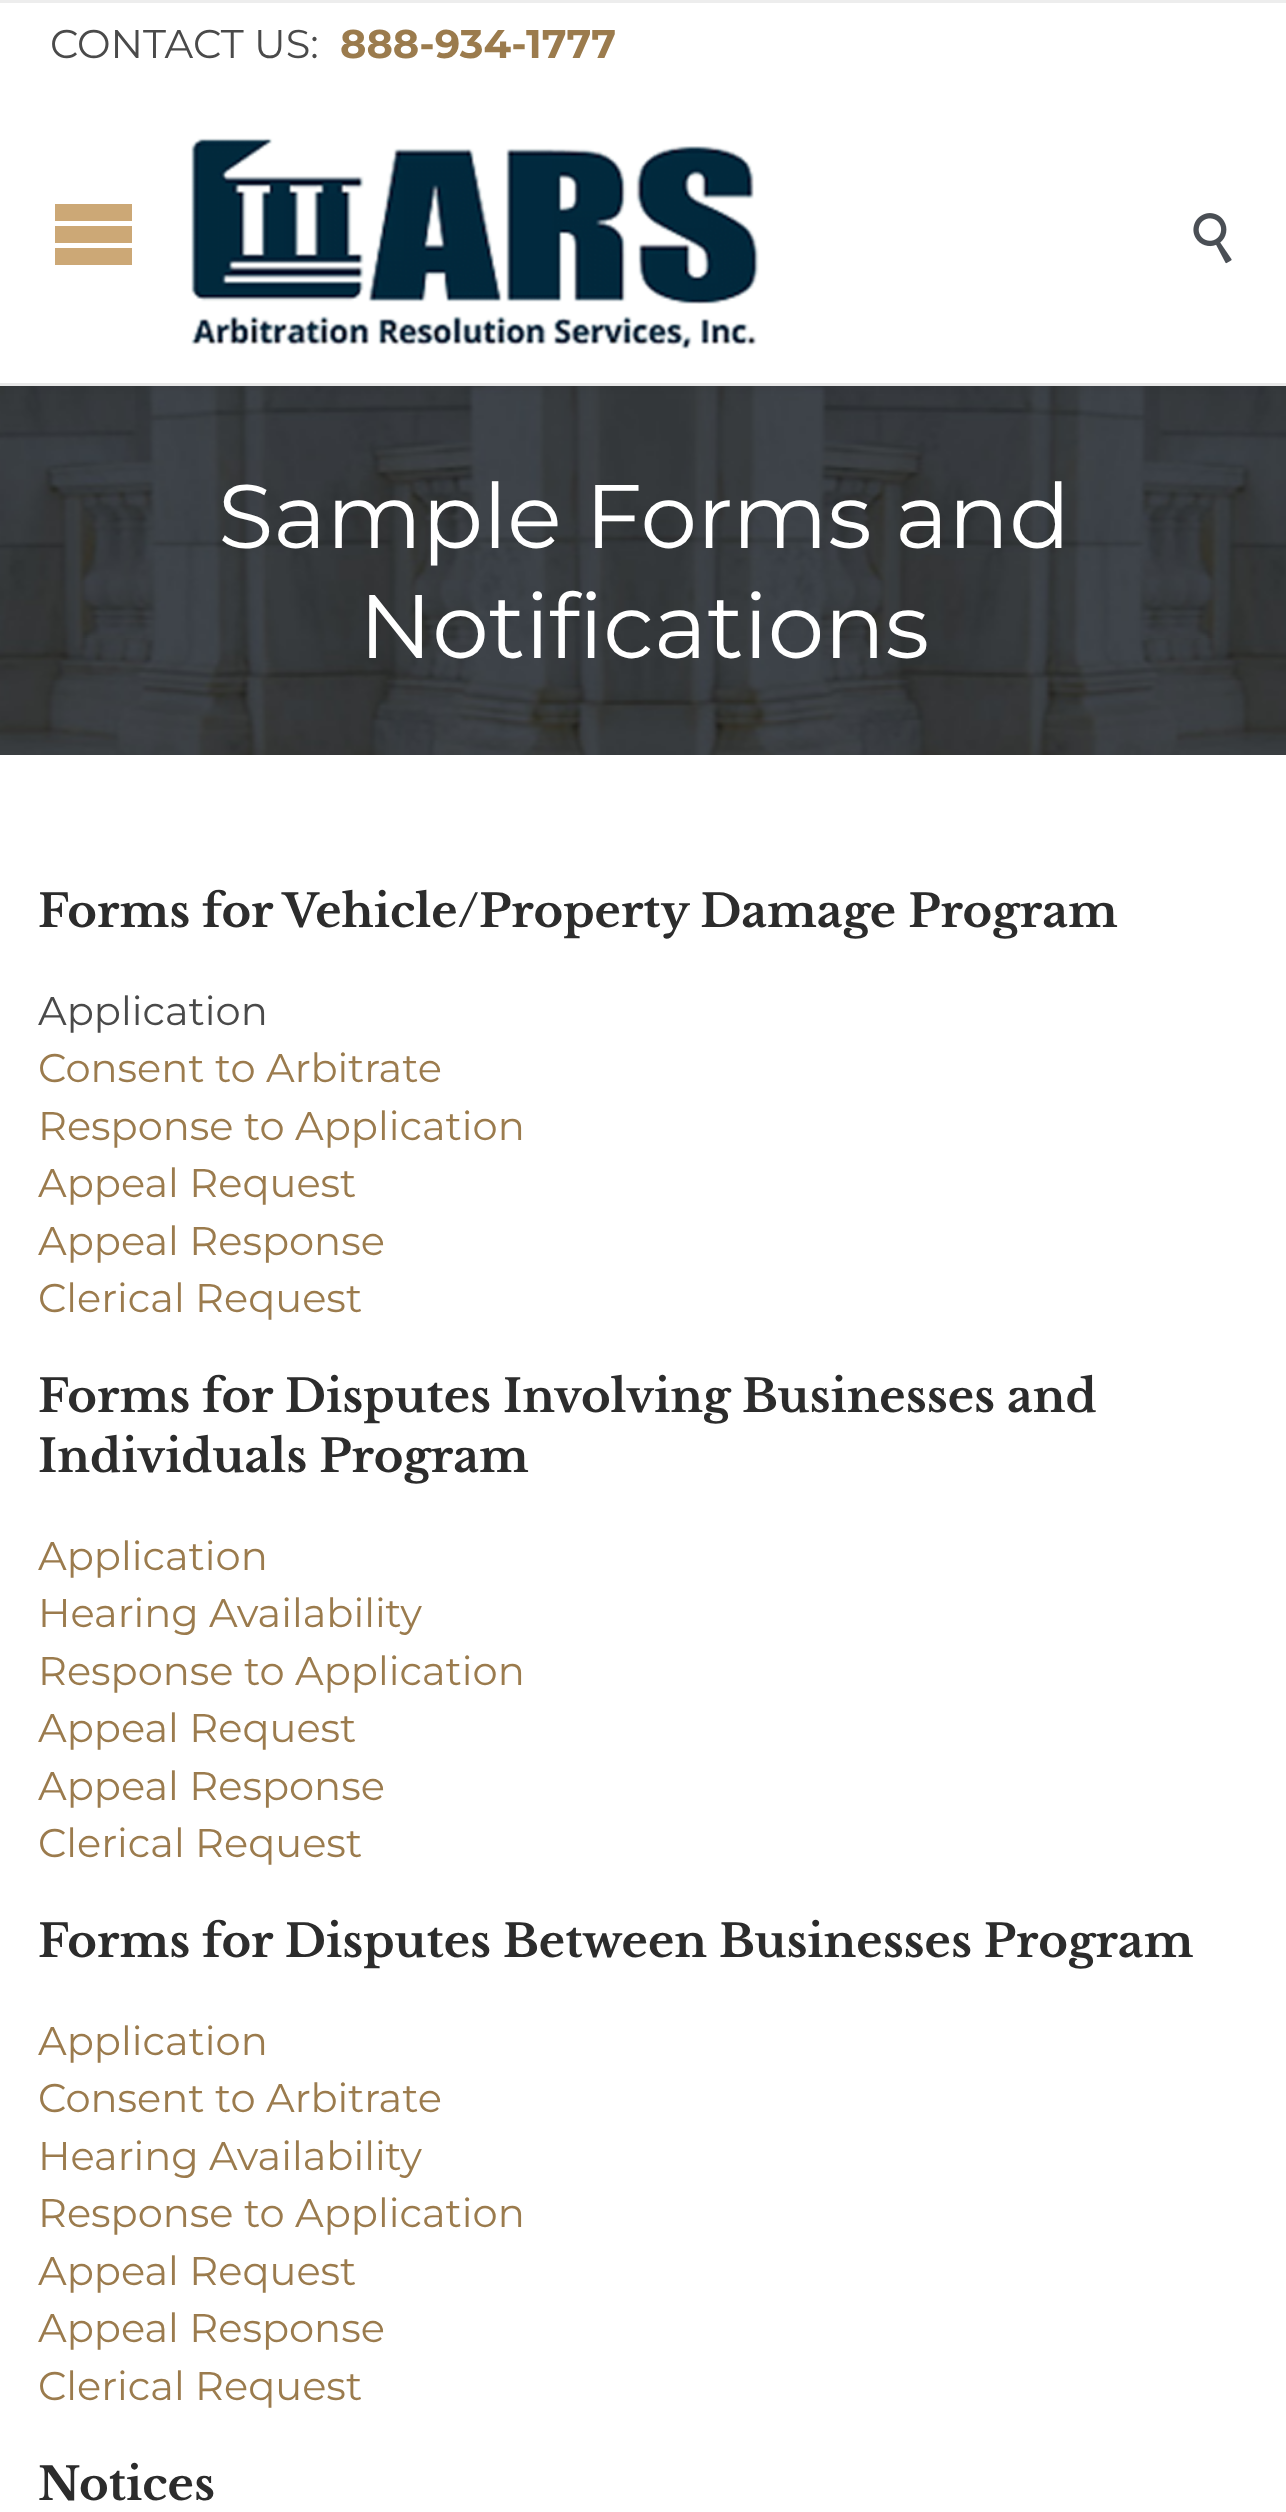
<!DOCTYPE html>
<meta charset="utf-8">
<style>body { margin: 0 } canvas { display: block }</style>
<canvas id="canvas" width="1286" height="2512"></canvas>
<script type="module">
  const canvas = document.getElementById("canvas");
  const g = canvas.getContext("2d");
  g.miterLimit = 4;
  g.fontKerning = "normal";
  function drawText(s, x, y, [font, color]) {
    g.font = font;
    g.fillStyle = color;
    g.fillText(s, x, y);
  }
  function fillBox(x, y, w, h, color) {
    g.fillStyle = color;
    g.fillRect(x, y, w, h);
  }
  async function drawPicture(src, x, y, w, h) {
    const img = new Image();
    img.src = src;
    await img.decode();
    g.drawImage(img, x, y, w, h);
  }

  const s1 = ["40px Montserrat", "#4A4A4A"];
  const s2 = ["bold 40px Montserrat", "#9B7B4D"];
  const s3 = ["90px Montserrat", "#FFFFFF"];
  const s4 = ["bold 45px Libre Baskerville", "#2C2C2C"];
  const s5 = ["40px Montserrat", "#9B7B4D"];

  fillBox(0, 0, 1286, 2512, "#FFFFFF");
  await drawPicture("pic3.png", 0, 386, 1286, 369);
  g.fillStyle = "rgba(0, 0, 0, 0.04)";
  g.filter = "blur(2.5px)";
  g.beginPath();
  g.rect(0, 5, 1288, 385);
  g.fill();
  g.filter = "none";
  fillBox(0, 3, 1286, 380, "#FFFFFF");
  fillBox(0, 383, 1286, 3, "#E8E8E8");
  fillBox(0, 0, 1286, 3, "#EDEDED");
  drawText("CONTACT US:", 50, 58, s1);
  drawText("888-934-1777", 340, 58, s2);
  await drawPicture("pic1.png", 191, 138, 568, 211);
  await drawPicture("pic2.png", 1193, 213, 39, 51);
  drawText("Sample Forms and", 218, 548, s3);
  drawText("Notifications", 359, 658, s3);
  drawText("Forms for Vehicle/Property Damage Program", 38, 927, s4);
  drawText("Application", 38, 1025, s1);
  drawText("Consent to Arbitrate", 38, 1082, s5);
  drawText("Response to Application", 38, 1140, s5);
  drawText("Appeal Request", 38, 1197, s5);
  drawText("Appeal Response", 38, 1255, s5);
  drawText("Clerical Request", 38, 1312, s5);
  drawText("Forms for Disputes Involving Businesses and", 38, 1412, s4);
  drawText("Individuals Program", 38, 1472, s4);
  drawText("Application", 38, 1570, s5);
  drawText("Hearing Availability", 38, 1627, s5);
  drawText("Response to Application", 38, 1685, s5);
  drawText("Appeal Request", 38, 1742, s5);
  drawText("Appeal Response", 38, 1800, s5);
  drawText("Clerical Request", 38, 1857, s5);
  drawText("Forms for Disputes Between Businesses Program", 38, 1957, s4);
  drawText("Application", 38, 2055, s5);
  drawText("Consent to Arbitrate", 38, 2112, s5);
  drawText("Hearing Availability", 38, 2170, s5);
  drawText("Response to Application", 38, 2227, s5);
  drawText("Appeal Request", 38, 2285, s5);
  drawText("Appeal Response", 38, 2342, s5);
  drawText("Clerical Request", 38, 2400, s5);
  drawText("Notices", 38, 2500, s4);
  g.fillStyle = "#CCA876";
  g.beginPath();
  g.moveTo(55, 204);
  g.lineTo(132, 204);
  g.lineTo(132, 221);
  g.lineTo(55, 221);
  g.closePath();
  g.moveTo(55, 226);
  g.lineTo(132, 226);
  g.lineTo(132, 243);
  g.lineTo(55, 243);
  g.closePath();
  g.moveTo(55, 248);
  g.lineTo(132, 248);
  g.lineTo(132, 265);
  g.lineTo(55, 265);
  g.closePath();
  g.fill();
</script>
